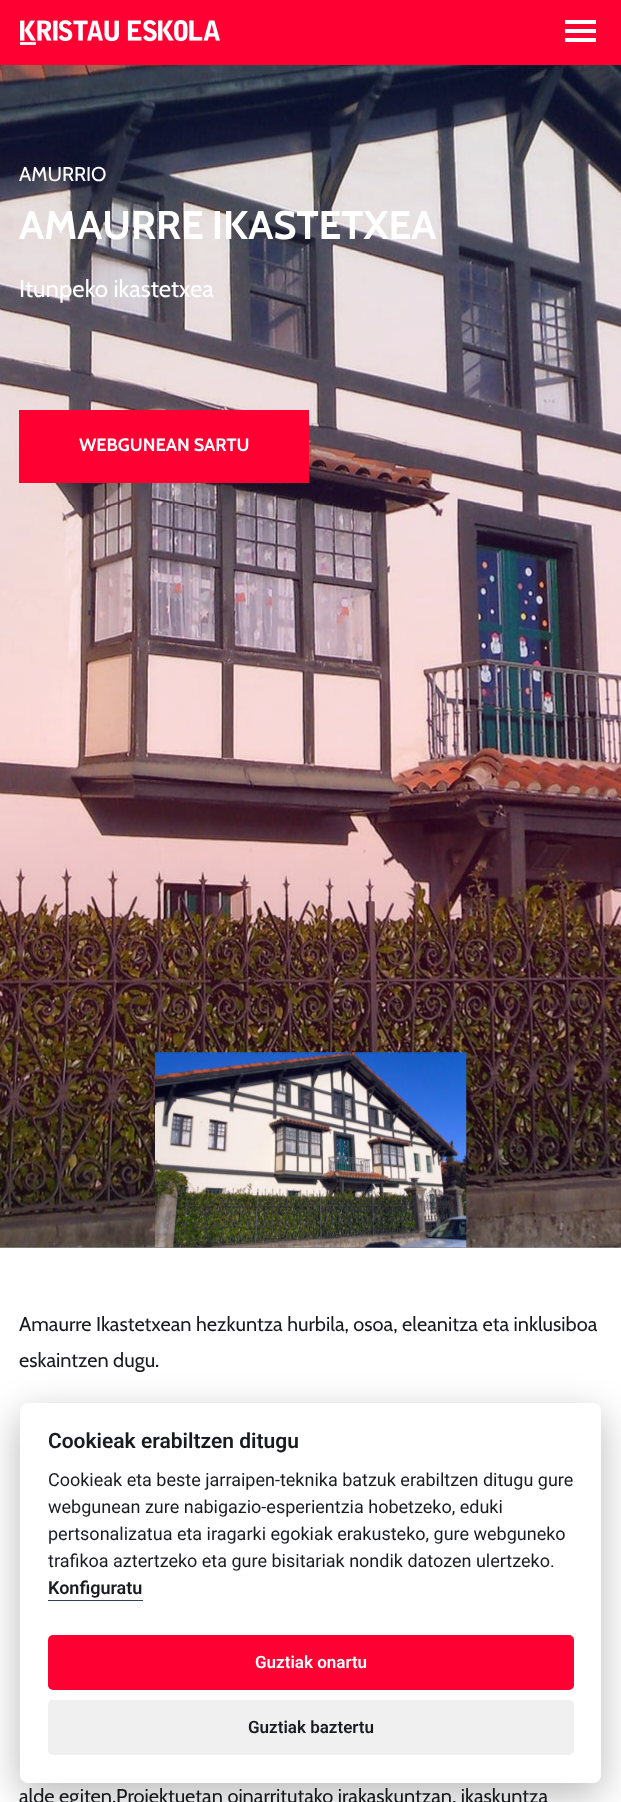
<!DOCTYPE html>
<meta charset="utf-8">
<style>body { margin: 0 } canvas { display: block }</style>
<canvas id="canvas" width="621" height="1802"></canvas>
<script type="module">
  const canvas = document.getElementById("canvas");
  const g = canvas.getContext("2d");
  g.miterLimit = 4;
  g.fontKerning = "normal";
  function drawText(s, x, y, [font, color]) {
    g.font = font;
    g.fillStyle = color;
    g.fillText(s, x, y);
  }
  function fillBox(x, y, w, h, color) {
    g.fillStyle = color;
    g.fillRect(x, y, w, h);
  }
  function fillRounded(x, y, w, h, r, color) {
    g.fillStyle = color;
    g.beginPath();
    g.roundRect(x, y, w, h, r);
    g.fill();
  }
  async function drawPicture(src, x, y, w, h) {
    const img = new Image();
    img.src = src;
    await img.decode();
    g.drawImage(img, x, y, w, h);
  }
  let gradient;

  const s1 = ["20px Cabin", "#FFFFFF"];
  const s2 = ["bold 40px Cabin", "#FFFFFF"];
  const s3 = ["24px Cabin", "#FFFFFF"];
  const s4 = ["bold 18px Cabin", "#FFFFFF"];
  const s5 = ["20px Cabin", "#191B1F"];
  const s6 = ["600 21px Roboto", "#191B1F"];
  const s7 = ["18px Roboto", "#191B1F"];
  const s8 = ["600 18px Roboto", "#191B1F"];
  const s9 = ["600 17px Roboto", "#FFFFFF"];
  const s10 = ["600 17px Roboto", "#191B1F"];

  fillBox(0, 0, 621, 1802, "#FFFFFF");
  fillBox(0, 0, 621, 65, "#FF0032");
  await drawPicture("pic1.png", 20, 20, 200, 25);
  fillBox(565, 20, 31, 4, "#FFFFFF");
  fillBox(565, 29, 31, 4, "#FFFFFF");
  fillBox(565, 38, 31, 4, "#FFFFFF");
  await drawPicture("pic2.png", 0, 65, 621, 1183);
  gradient = g.createLinearGradient(311, -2.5, 311, 1248);
  gradient.addColorStop(0, "rgba(28, 150, 212, 0.1)");
  gradient.addColorStop(0.6, "rgba(255, 0, 51, 0.1)");
  gradient.addColorStop(1, "rgba(0, 0, 0, 0.4)");
  g.fillStyle = gradient;
  g.fillRect(0, 65, 621, 1183);
  drawText("AMURRIO", 19, 181, s1);
  g.wordSpacing = "-1px";
  drawText("AMAURRE IKASTETXEA", 19, 239, s2);
  g.wordSpacing = "0px";
  drawText("Itunpeko ikastetxea", 19, 297, s3);
  fillBox(19, 410, 290, 73, "#FF0032");
  drawText("WEBGUNEAN SARTU", 79, 451, s4);
  await drawPicture("pic3.png", 155, 1052, 312, 196);
  drawText("Amaurre Ikastetxean hezkuntza hurbila, osoa, eleanitza eta inklusiboa", 19, 1331, s5);
  drawText("eskaintzen dugu.", 19, 1367, s5);
  drawText("alde egiten.Proiektuetan oinarritutako irakaskuntzan, ikaskuntza", 19, 1803, s5);
  g.fillStyle = "rgba(2, 2, 3, 0.28)";
  g.filter = "blur(19px)";
  g.beginPath();
  g.roundRect(20, 1415, 581, 380, 8);
  g.fill();
  g.filter = "none";
  fillRounded(20, 1403, 581, 380, 8, "#FFFFFF");
  drawText("Cookieak erabiltzen ditugu", 48, 1448, s6);
  drawText("Cookieak eta beste jarraipen-teknika batzuk erabiltzen ditugu gure", 48, 1486, s7);
  drawText("webgunean zure nabigazio-esperientzia hobetzeko, eduki", 48, 1513, s7);
  drawText("pertsonalizatua eta iragarki egokiak erakusteko, gure webguneko", 48, 1540, s7);
  drawText("trafikoa aztertzeko eta gure bisitariak nondik datozen ulertzeko.", 48, 1567, s7);
  drawText("Konfiguratu", 48, 1594, s8);
  fillBox(48, 1600, 95, 1, "#2D4156");
  fillRounded(48, 1635, 526, 55, 5, "#FF0032");
  drawText("Guztiak onartu", 255, 1668, s9);
  fillRounded(48, 1700, 526, 55, 5, "#F0F0F0");
  drawText("Guztiak baztertu", 248, 1733, s10);
</script>
